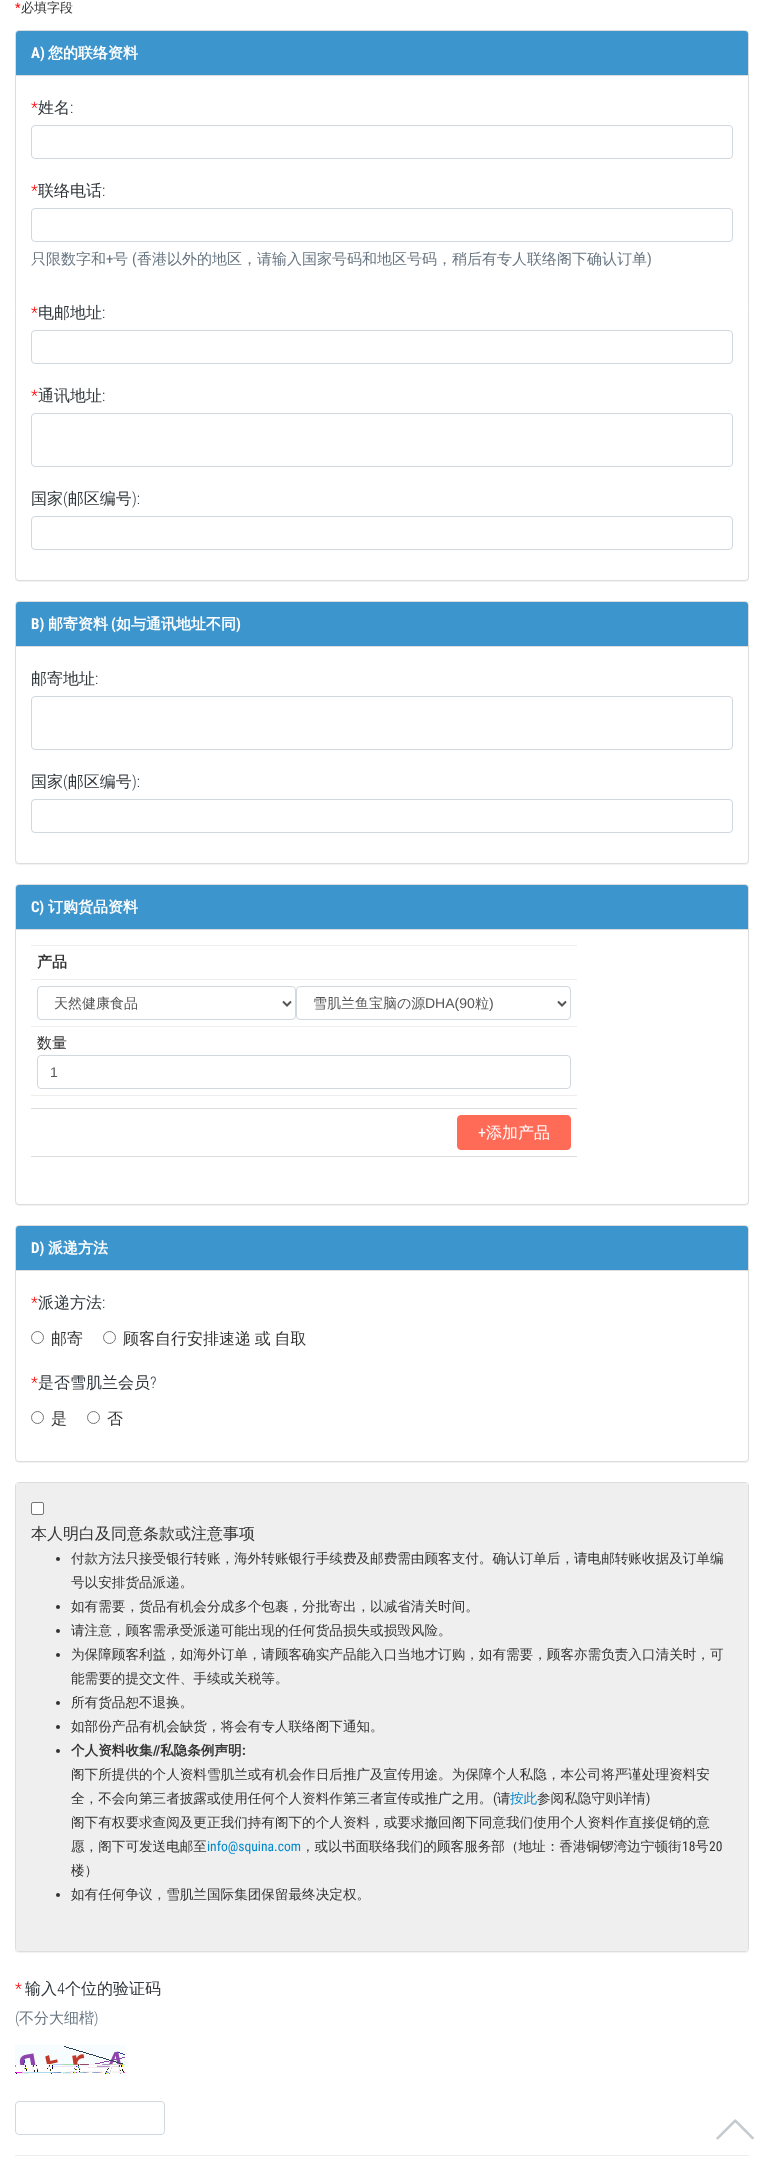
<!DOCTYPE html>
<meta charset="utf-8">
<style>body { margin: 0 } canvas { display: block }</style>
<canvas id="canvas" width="764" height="2173"></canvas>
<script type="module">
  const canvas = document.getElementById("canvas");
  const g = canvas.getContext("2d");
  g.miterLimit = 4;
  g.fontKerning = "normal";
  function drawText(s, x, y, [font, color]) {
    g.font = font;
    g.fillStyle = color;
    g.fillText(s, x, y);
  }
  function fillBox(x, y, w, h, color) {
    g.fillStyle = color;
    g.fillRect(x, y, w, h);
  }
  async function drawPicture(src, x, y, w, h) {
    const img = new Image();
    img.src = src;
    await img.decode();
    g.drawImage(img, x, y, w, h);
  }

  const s1 = ["13px Roboto Condensed", "#FF0000"];
  const s2 = ["500 13px WenQuanYi Zen Hei", "#333333"];
  const s3 = ["bold 15px Roboto Condensed", "#FFFFFF"];
  const s4 = ["bold 15px WenQuanYi Zen Hei", "#FFFFFF"];
  const s5 = ["300 16px Roboto Condensed", "#FF0000"];
  const s6 = ["500 16px WenQuanYi Zen Hei", "#2E353A"];
  const s7 = ["300 16px Roboto Condensed", "#2E353A"];
  const s8 = ["500 15px WenQuanYi Zen Hei", "#677581"];
  const s9 = ["15px Roboto Condensed", "#677581"];
  const s10 = ["bold 15px WenQuanYi Zen Hei", "#333333"];
  const s11 = ["500 14px WenQuanYi Zen Hei", "#555555"];
  const s12 = ["14px Liberation Sans", "#555555"];
  const s13 = ["500 15px WenQuanYi Zen Hei", "#333333"];
  const s14 = ["16px Roboto Condensed", "#FFFFFF"];
  const s15 = ["500 16px WenQuanYi Zen Hei", "#FFFFFF"];
  const s16 = ["500 16px WenQuanYi Zen Hei", "#333333"];
  const s17 = ["500 13.6px WenQuanYi Zen Hei", "#333333"];
  const s18 = ["bold 13.6px WenQuanYi Zen Hei", "#333333"];
  const s19 = ["bold 13.6px Roboto Condensed", "#333333"];
  const s20 = ["13.6px Roboto Condensed", "#333333"];
  const s21 = ["500 13.6px WenQuanYi Zen Hei", "#0088CC"];
  const s22 = ["13.6px Roboto Condensed", "#0088CC"];
  const s23 = ["300 15px Roboto Condensed", "#677581"];

  fillBox(0, 0, 764, 2173, "#FFFFFF");
  drawText("*", 15, 12, s1);
  drawText("必填字段", 21, 12, s2);
  g.fillStyle = "rgba(0, 0, 0, 0.05)";
  g.filter = "blur(0.5px)";
  g.beginPath();
  g.roundRect(15, 31, 734, 551, 4);
  g.fill();
  g.filter = "none";
  g.fillStyle = "#FFFFFF";
  g.beginPath();
  g.roundRect(15.5, 30.5, 733, 550, 3.5);
  g.fill();
  g.strokeStyle = "#DDDDDD";
  g.stroke();
  g.fillStyle = "#3C95CD";
  g.beginPath();
  g.roundRect(16, 31, 732, 45, [3, 3, 0, 0]);
  g.fill();
  fillBox(16, 75, 732, 1, "#DDDDDD");
  drawText("A)", 31, 58, s3);
  drawText("您的联络资料", 48, 58, s4);
  drawText("*", 31, 113, s5);
  drawText("姓名", 38, 113, s6);
  drawText(":", 70, 113, s7);
  g.beginPath();
  g.roundRect(31.5, 125.5, 701, 33, 3.5);
  g.strokeStyle = "#D0D7DE";
  g.stroke();
  drawText("*", 31, 196, s5);
  drawText("联络电话", 38, 196, s6);
  drawText(":", 102, 196, s7);
  g.beginPath();
  g.roundRect(31.5, 208.5, 701, 33, 3.5);
  g.stroke();
  drawText("只限数字和", 31, 264, s8);
  drawText("+", 106, 264, s9);
  drawText("号", 113, 264, s8);
  drawText("(", 132, 264, s9);
  drawText("香港以外的地区，请输入国家号码和地区号码，稍后有专人联络阁下确认订单", 137, 264, s8);
  drawText(")", 647, 264, s9);
  drawText("*", 31, 318, s5);
  drawText("电邮地址", 38, 318, s6);
  drawText(":", 102, 318, s7);
  g.beginPath();
  g.roundRect(31.5, 330.5, 701, 33, 3.5);
  g.stroke();
  drawText("*", 31, 401, s5);
  drawText("通讯地址", 38, 401, s6);
  drawText(":", 102, 401, s7);
  g.beginPath();
  g.roundRect(31.5, 413.5, 701, 53, 3.5);
  g.stroke();
  drawText("国家 邮区编号", 31, 504, s6);
  drawText("(", 63, 504, s7);
  drawText("):", 132, 504, s7);
  g.beginPath();
  g.roundRect(31.5, 516.5, 701, 33, 3.5);
  g.stroke();
  g.fillStyle = "rgba(0, 0, 0, 0.05)";
  g.filter = "blur(0.5px)";
  g.beginPath();
  g.roundRect(15, 602, 734, 263, 4);
  g.fill();
  g.filter = "none";
  g.fillStyle = "#FFFFFF";
  g.beginPath();
  g.roundRect(15.5, 601.5, 733, 262, 3.5);
  g.fill();
  g.strokeStyle = "#DDDDDD";
  g.stroke();
  g.fillStyle = "#3C95CD";
  g.beginPath();
  g.roundRect(16, 602, 732, 45, [3, 3, 0, 0]);
  g.fill();
  fillBox(16, 646, 732, 1, "#DDDDDD");
  drawText("B)", 31, 629, s3);
  drawText("邮寄资料", 48, 629, s4);
  drawText("(", 111, 629, s3);
  drawText("如与通讯地址不同", 116, 629, s4);
  drawText(")", 236, 629, s3);
  drawText("邮寄地址", 31, 684, s6);
  drawText(":", 95, 684, s7);
  g.beginPath();
  g.roundRect(31.5, 696.5, 701, 53, 3.5);
  g.strokeStyle = "#D0D7DE";
  g.stroke();
  drawText("国家 邮区编号", 31, 787, s6);
  drawText("(", 63, 787, s7);
  drawText("):", 132, 787, s7);
  g.beginPath();
  g.roundRect(31.5, 799.5, 701, 33, 3.5);
  g.stroke();
  g.fillStyle = "rgba(0, 0, 0, 0.05)";
  g.filter = "blur(0.5px)";
  g.beginPath();
  g.roundRect(15, 885, 734, 321, 4);
  g.fill();
  g.filter = "none";
  g.fillStyle = "#FFFFFF";
  g.beginPath();
  g.roundRect(15.5, 884.5, 733, 320, 3.5);
  g.fill();
  g.strokeStyle = "#DDDDDD";
  g.stroke();
  g.fillStyle = "#3C95CD";
  g.beginPath();
  g.roundRect(16, 885, 732, 45, [3, 3, 0, 0]);
  g.fill();
  fillBox(16, 929, 732, 1, "#DDDDDD");
  drawText("C)", 31, 912, s3);
  drawText("订购货品资料", 48, 912, s4);
  fillBox(31, 945, 546, 1, "#EEEEEE");
  drawText("产品", 37, 967, s10);
  fillBox(31, 979, 546, 1, "#EEEEEE");
  g.beginPath();
  g.roundRect(37.5, 986.5, 258, 33, 3.5);
  g.strokeStyle = "#D0D7DE";
  g.stroke();
  g.beginPath();
  g.moveTo(283, 1001.5);
  g.lineTo(287, 1005.5);
  g.lineTo(291, 1001.5);
  g.strokeStyle = "#555555";
  g.lineWidth = 2;
  g.stroke();
  drawText("天然健康食品", 54, 1008, s11);
  g.beginPath();
  g.roundRect(296.5, 986.5, 274, 33, 3.5);
  g.strokeStyle = "#D0D7DE";
  g.lineWidth = 1;
  g.stroke();
  g.beginPath();
  g.moveTo(558, 1001.5);
  g.lineTo(562, 1005.5);
  g.lineTo(566, 1001.5);
  g.strokeStyle = "#555555";
  g.lineWidth = 2;
  g.stroke();
  drawText("雪肌兰鱼宝脑の源", 313, 1008, s11);
  drawText("DHA(90", 425, 1008, s12);
  drawText("粒", 475, 1008, s11);
  drawText(")", 489, 1008, s12);
  fillBox(31, 1026, 546, 1, "#EEEEEE");
  drawText("数量", 37, 1048, s13);
  g.beginPath();
  g.roundRect(37.5, 1055.5, 533, 33, 3.5);
  g.strokeStyle = "#D0D7DE";
  g.lineWidth = 1;
  g.stroke();
  drawText("1", 50, 1077, s12);
  fillBox(31, 1095, 546, 1, "#EEEEEE");
  fillBox(31, 1108, 546, 1, "#DDDDDD");
  g.fillStyle = "#FF6B57";
  g.beginPath();
  g.roundRect(457.5, 1115.5, 113, 34, 3.5);
  g.fill();
  g.strokeStyle = "#FF6B57";
  g.stroke();
  drawText("+", 478, 1138, s14);
  drawText("添加产品", 486, 1138, s15);
  fillBox(31, 1156, 546, 1, "#DDDDDD");
  g.fillStyle = "rgba(0, 0, 0, 0.05)";
  g.filter = "blur(0.5px)";
  g.beginPath();
  g.roundRect(15, 1226, 734, 237, 4);
  g.fill();
  g.filter = "none";
  g.fillStyle = "#FFFFFF";
  g.beginPath();
  g.roundRect(15.5, 1225.5, 733, 236, 3.5);
  g.fill();
  g.strokeStyle = "#DDDDDD";
  g.stroke();
  g.fillStyle = "#3C95CD";
  g.beginPath();
  g.roundRect(16, 1226, 732, 45, [3, 3, 0, 0]);
  g.fill();
  fillBox(16, 1270, 732, 1, "#DDDDDD");
  drawText("D)", 31, 1253, s3);
  drawText("派递方法", 48, 1253, s4);
  drawText("*", 31, 1308, s5);
  drawText("派递方法", 38, 1308, s6);
  drawText(":", 102, 1308, s7);
  g.beginPath();
  g.arc(37.5, 1337.5, 6, 0, Math.PI * 2);
  g.strokeStyle = "#767676";
  g.stroke();
  drawText("邮寄", 51, 1344, s16);
  g.beginPath();
  g.arc(109.5, 1337.5, 6, 0, Math.PI * 2);
  g.stroke();
  g.wordSpacing = "-1px";
  drawText("顾客自行安排速递 或 自取", 123, 1344, s16);
  g.wordSpacing = "0px";
  drawText("*", 31, 1388, s5);
  drawText("是否雪肌兰会员", 38, 1388, s6);
  drawText("?", 150, 1388, s7);
  g.beginPath();
  g.arc(37.5, 1417.5, 6, 0, Math.PI * 2);
  g.stroke();
  drawText("是", 51, 1424, s16);
  g.beginPath();
  g.arc(93.5, 1417.5, 6, 0, Math.PI * 2);
  g.stroke();
  drawText("否", 107, 1424, s16);
  g.fillStyle = "rgba(0, 0, 0, 0.05)";
  g.filter = "blur(0.5px)";
  g.beginPath();
  g.roundRect(15, 1483, 734, 470, 4);
  g.fill();
  g.filter = "none";
  g.beginPath();
  g.roundRect(15.5, 1482.5, 733, 469, 3.5);
  g.strokeStyle = "#DDDDDD";
  g.stroke();
  fillBox(16, 1483, 732, 468, "#EFEFEF");
  g.fillStyle = "#FFFFFF";
  g.beginPath();
  g.roundRect(31.5, 1502.5, 12, 12, 1.5);
  g.fill();
  g.strokeStyle = "#767676";
  g.stroke();
  drawText("本人明白及同意条款或注意事项", 31, 1539, s16);
  g.beginPath();
  g.arc(58, 1559, 2, 0, Math.PI * 2);
  g.fill();
  drawText("付款方法只接受银行转账，海外转账银行手续费及邮费需由顾客支付。确认订单后，请电邮转账收据及订单编", 71, 1563, s17);
  drawText("号以安排货品派递。", 71, 1587, s17);
  g.beginPath();
  g.arc(58, 1607, 2, 0, Math.PI * 2);
  g.fill();
  drawText("如有需要，货品有机会分成多个包裹，分批寄出，以减省清关时间。", 71, 1611, s17);
  g.beginPath();
  g.arc(58, 1631, 2, 0, Math.PI * 2);
  g.fill();
  drawText("请注意，顾客需承受派递可能出现的任何货品损失或损毁风险。", 71, 1635, s17);
  g.beginPath();
  g.arc(58, 1655, 2, 0, Math.PI * 2);
  g.fill();
  drawText("为保障顾客利益，如海外订单，请顾客确实产品能入口当地才订购，如有需要，顾客亦需负责入口清关时，可", 71, 1659, s17);
  drawText("能需要的提交文件、手续或关税等。", 71, 1683, s17);
  g.beginPath();
  g.arc(58, 1703, 2, 0, Math.PI * 2);
  g.fill();
  drawText("所有货品恕不退换。", 71, 1707, s17);
  g.beginPath();
  g.arc(58, 1727, 2, 0, Math.PI * 2);
  g.fill();
  drawText("如部份产品有机会缺货，将会有专人联络阁下通知。", 71, 1731, s17);
  g.beginPath();
  g.arc(58, 1751, 2, 0, Math.PI * 2);
  g.fill();
  drawText("个人资料收集", 71, 1755, s18);
  drawText("//", 153, 1755, s19);
  drawText("私隐条例声明", 160, 1755, s18);
  drawText(":", 242, 1755, s19);
  drawText("阁下所提供的个人资料雪肌兰或有机会作日后推广及宣传用途。为保障个人私隐，本公司将严谨处理资料安", 71, 1779, s17);
  drawText("全，不会向第三者披露或使用任何个人资料作第三者宣传或推广之用。", 71, 1803, s17);
  drawText("(", 493, 1803, s20);
  drawText("请", 497, 1803, s17);
  drawText("按此", 510, 1803, s21);
  drawText("参阅私隐守则详情", 537, 1803, s17);
  drawText(")", 646, 1803, s20);
  drawText("阁下有权要求查阅及更正我们持有阁下的个人资料，或要求撤回阁下同意我们使用个人资料作直接促销的意", 71, 1827, s17);
  drawText("愿，阁下可发送电邮至", 71, 1851, s17);
  drawText("info@squina.com", 207, 1851, s22);
  drawText("，或以书面联络我们的顾客服务部（地址：香港铜锣湾边宁顿街", 301, 1851, s17);
  drawText("18", 682, 1851, s20);
  drawText("号", 695, 1851, s17);
  drawText("20", 709, 1851, s20);
  drawText("楼）", 71, 1875, s17);
  g.beginPath();
  g.arc(58, 1895, 2, 0, Math.PI * 2);
  g.fill();
  drawText("如有任何争议，雪肌兰国际集团保留最终决定权。", 71, 1899, s17);
  drawText("*", 15, 1994, s5);
  drawText("输入", 25, 1994, s6);
  drawText("4", 57, 1994, s7);
  drawText("个位的验证码", 65, 1994, s6);
  drawText("(", 15, 2023, s23);
  drawText("不分大细楷", 19, 2023, s8);
  drawText(")", 94, 2023, s23);
  await drawPicture("pic1.png", 15, 2045, 110, 29);
  g.beginPath();
  g.roundRect(15.5, 2101.5, 149, 33, 3.5);
  g.strokeStyle = "#D0D7DE";
  g.stroke();
  fillBox(15, 2155, 734, 1, "#EEEEEE");
  await drawPicture("pic2.png", 716, 2119, 38, 21);
</script>
